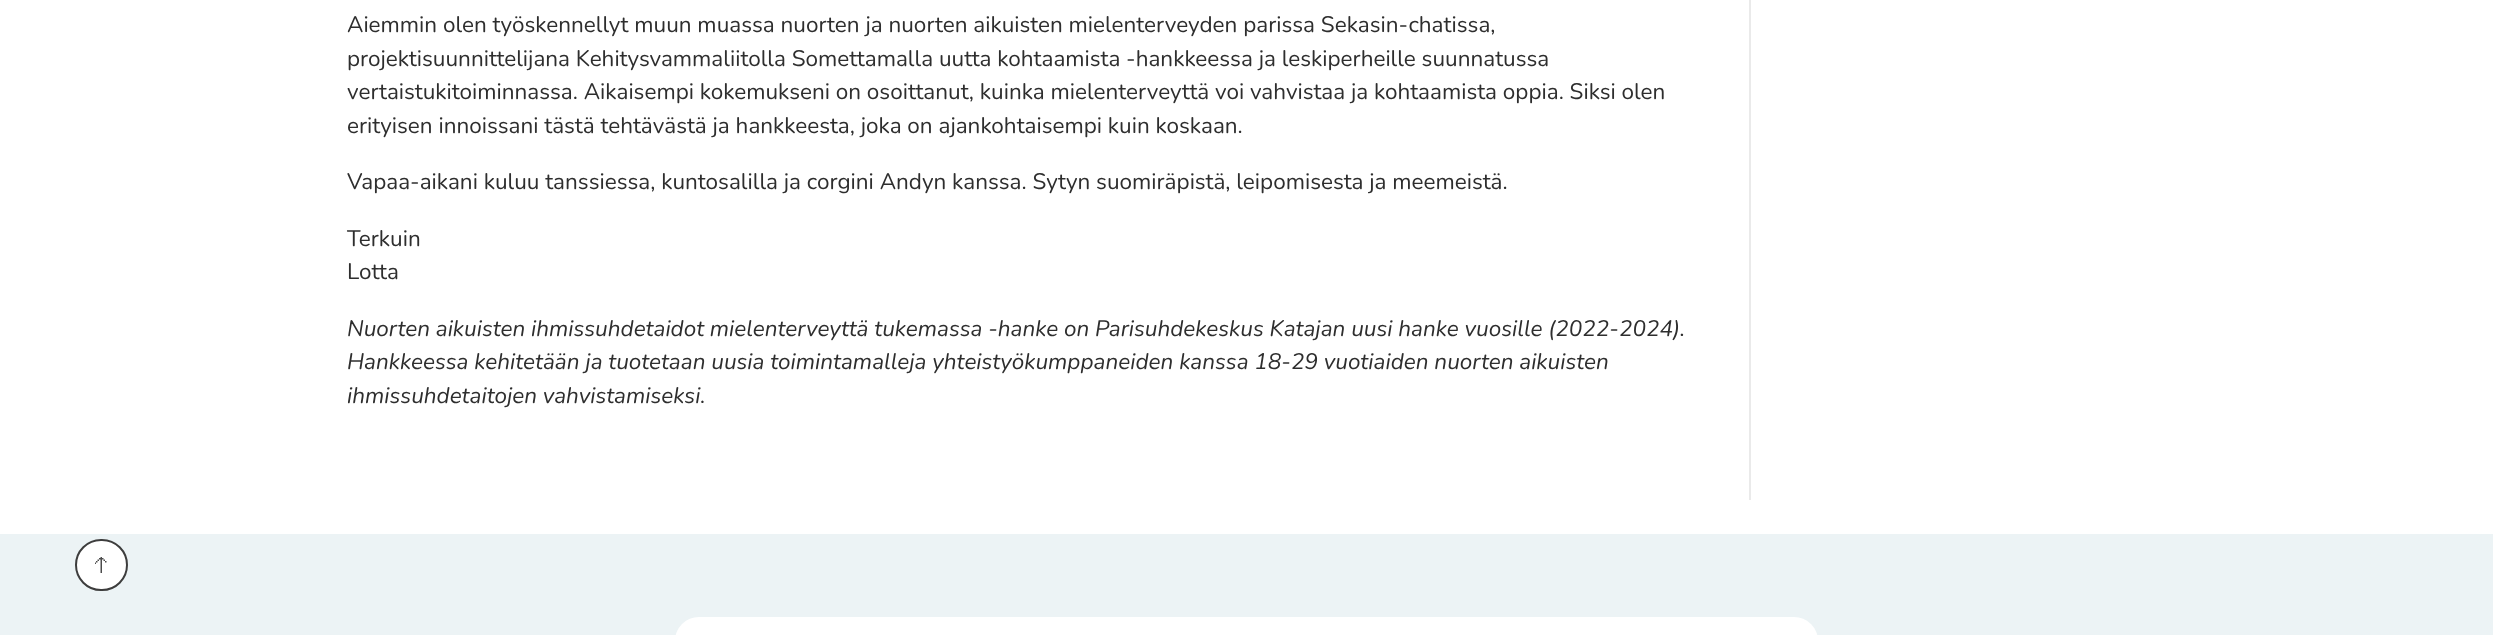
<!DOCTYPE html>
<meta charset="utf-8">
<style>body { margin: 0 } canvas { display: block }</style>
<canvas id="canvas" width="2493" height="635"></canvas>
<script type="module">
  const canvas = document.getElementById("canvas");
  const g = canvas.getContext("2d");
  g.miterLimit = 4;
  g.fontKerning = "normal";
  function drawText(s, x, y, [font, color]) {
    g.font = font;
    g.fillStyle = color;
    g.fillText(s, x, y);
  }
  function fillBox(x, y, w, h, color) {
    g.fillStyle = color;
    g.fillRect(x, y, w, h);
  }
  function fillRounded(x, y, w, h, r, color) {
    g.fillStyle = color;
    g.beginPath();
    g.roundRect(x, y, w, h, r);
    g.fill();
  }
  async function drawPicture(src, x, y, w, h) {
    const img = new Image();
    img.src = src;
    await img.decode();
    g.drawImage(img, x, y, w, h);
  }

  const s1 = ["22.5px Nunito", "#2E2E2E"];
  const s2 = ["italic 22.5px Nunito", "#2E2E2E"];

  fillBox(0, 0, 2493, 635, "#FFFFFF");
  drawText("Aiemmin olen työskennellyt muun muassa nuorten ja nuorten aikuisten mielenterveyden parissa Sekasin-chatissa,", 347, 32, s1);
  drawText("projektisuunnittelijana Kehitysvammaliitolla Somettamalla uutta kohtaamista -hankkeessa ja leskiperheille suunnatussa", 347, 66, s1);
  drawText("vertaistukitoiminnassa. Aikaisempi kokemukseni on osoittanut, kuinka mielenterveyttä voi vahvistaa ja kohtaamista oppia. Siksi olen", 347, 99, s1);
  drawText("erityisen innoissani tästä tehtävästä ja hankkeesta, joka on ajankohtaisempi kuin koskaan.", 347, 133, s1);
  drawText("Vapaa-aikani kuluu tanssiessa, kuntosalilla ja corgini Andyn kanssa. Sytyn suomiräpistä, leipomisesta ja meemeistä.", 347, 189, s1);
  drawText("Terkuin", 347, 246, s1);
  drawText("Lotta", 347, 279, s1);
  drawText("Nuorten aikuisten ihmissuhdetaidot mielenterveyttä tukemassa -hanke on Parisuhdekeskus Katajan uusi hanke vuosille (2022-2024).", 347, 336, s2);
  drawText("Hankkeessa kehitetään ja tuotetaan uusia toimintamalleja yhteistyökumppaneiden kanssa 18-29 vuotiaiden nuorten aikuisten", 347, 369, s2);
  drawText("ihmissuhdetaitojen vahvistamiseksi.", 347, 403, s2);
  fillBox(1749, 0, 2, 500, "#EAEAEA");
  fillBox(0, 534, 2493, 101, "#ECF3F5");
  fillRounded(675, 617, 1143, 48, 30, "#FFFFFF");
  g.beginPath();
  g.roundRect(76, 540, 51, 50, 25);
  g.fill();
  g.strokeStyle = "#3D3D3D";
  g.lineWidth = 2;
  g.stroke();
  await drawPicture("pic1.png", 95, 557, 12, 16);
</script>
